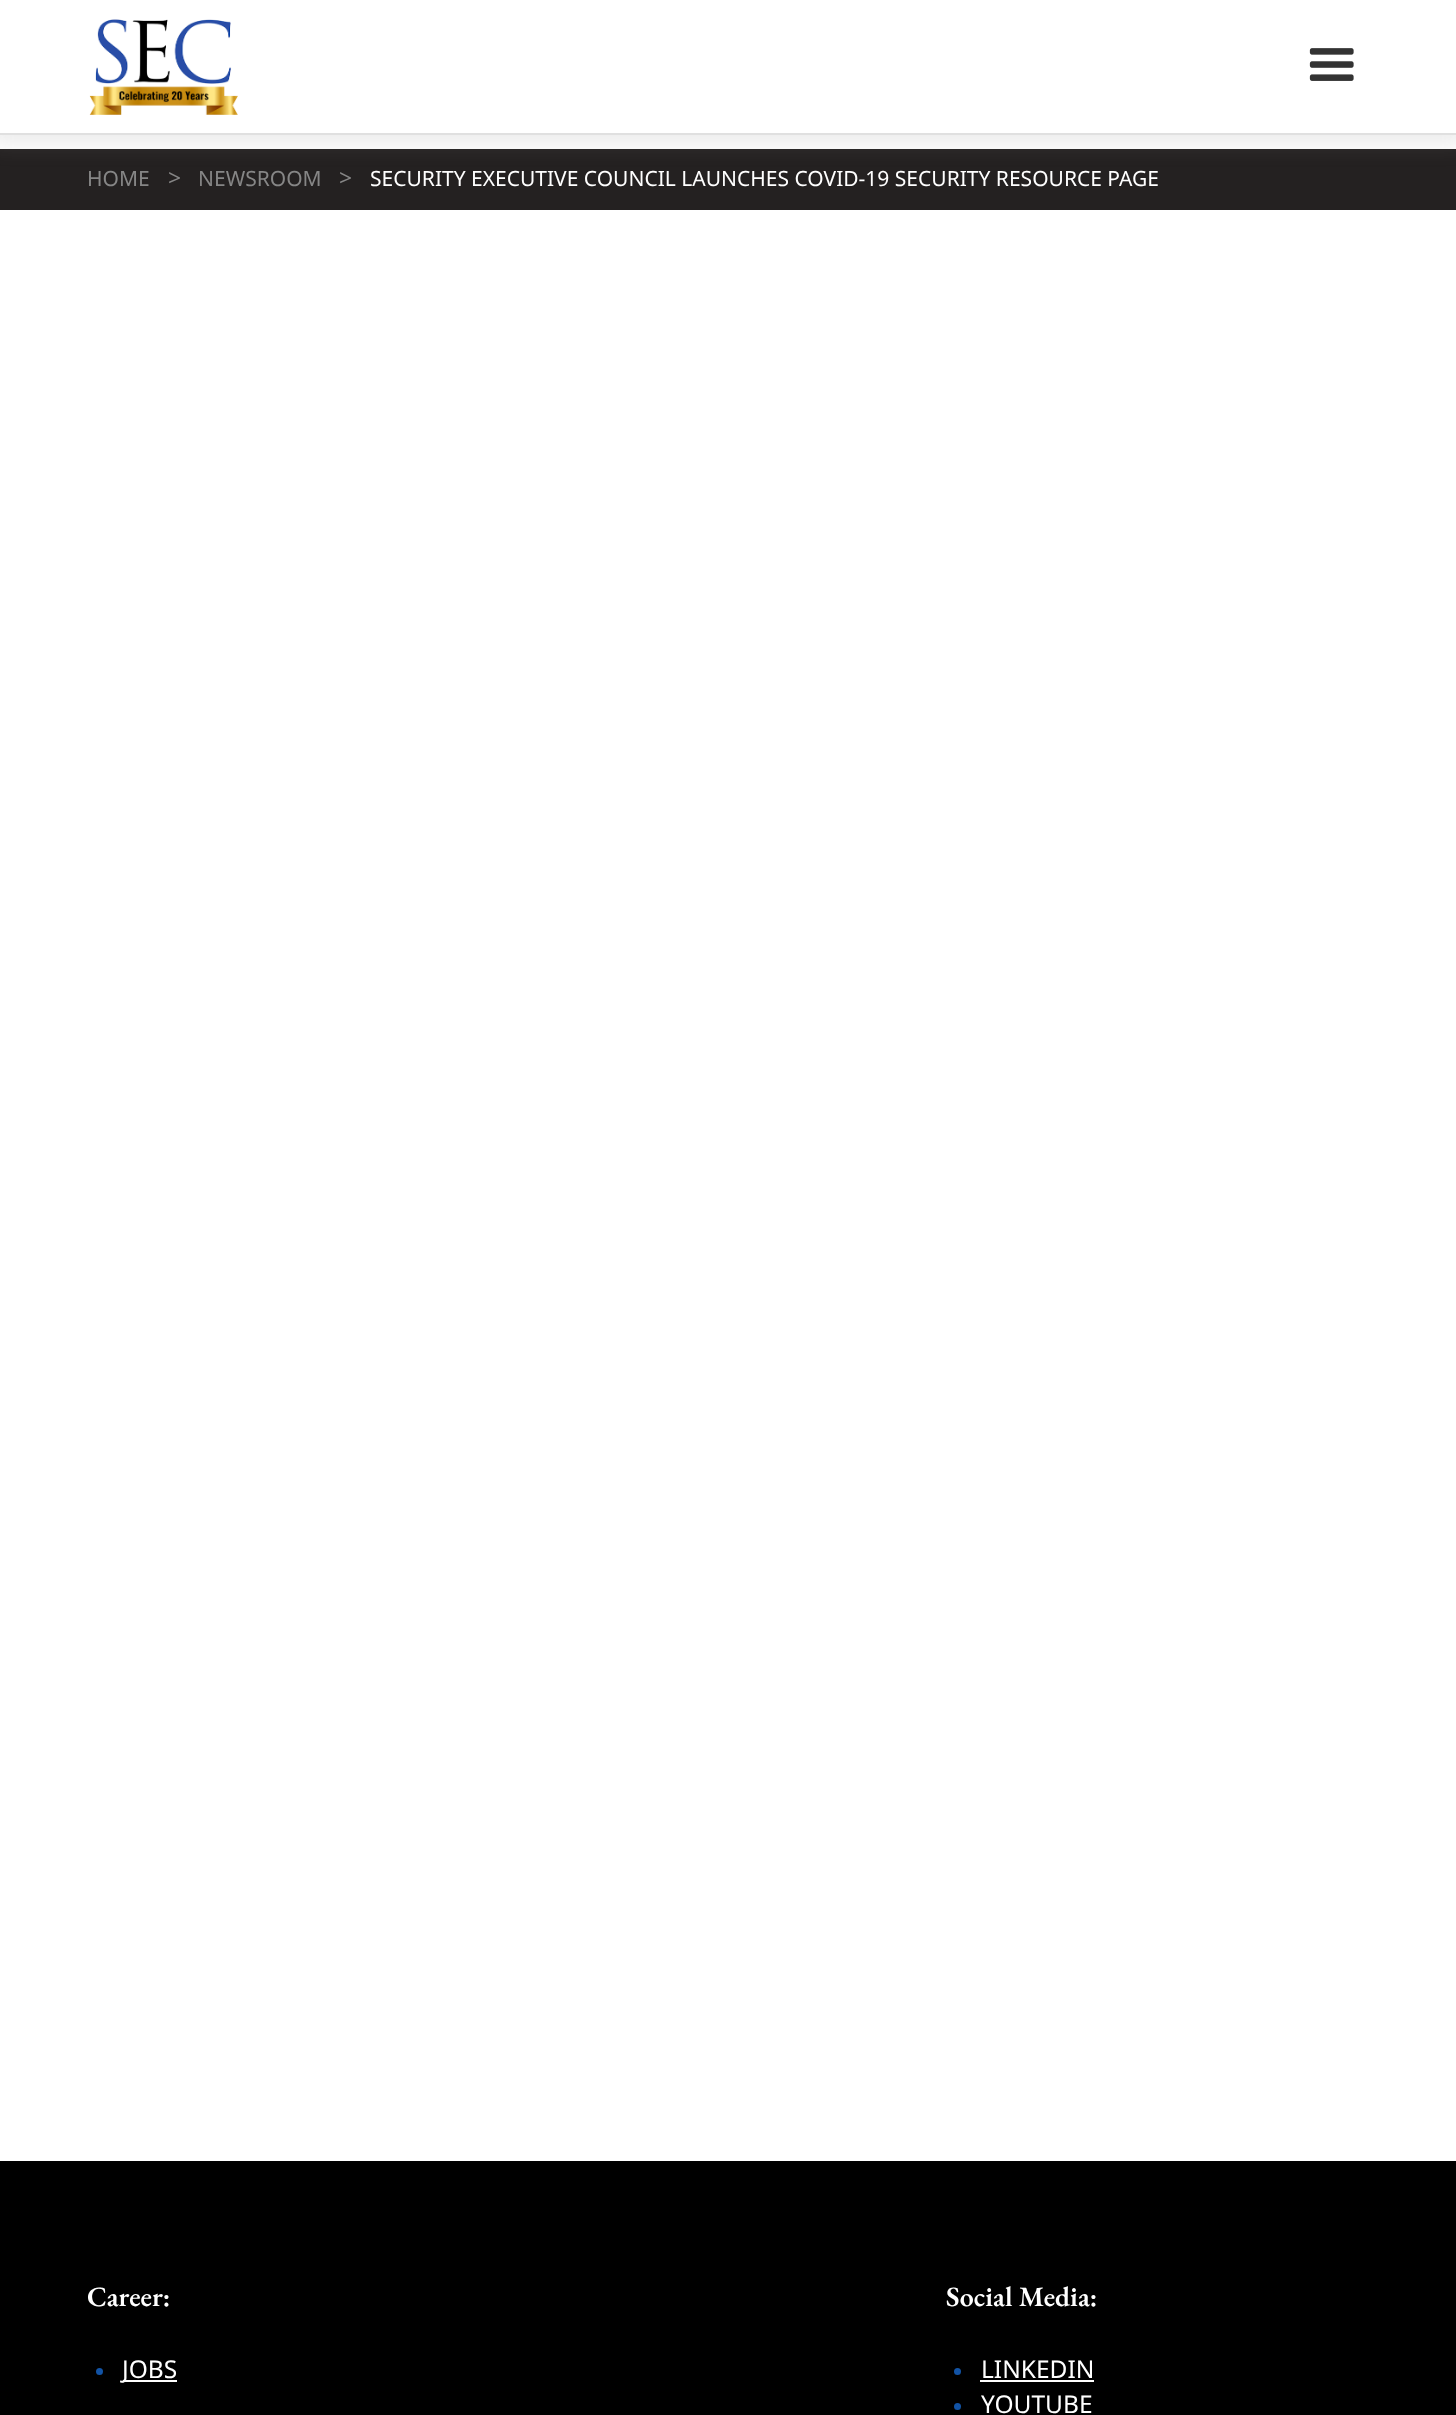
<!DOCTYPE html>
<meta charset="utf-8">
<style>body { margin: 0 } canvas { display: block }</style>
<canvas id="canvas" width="1456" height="2415"></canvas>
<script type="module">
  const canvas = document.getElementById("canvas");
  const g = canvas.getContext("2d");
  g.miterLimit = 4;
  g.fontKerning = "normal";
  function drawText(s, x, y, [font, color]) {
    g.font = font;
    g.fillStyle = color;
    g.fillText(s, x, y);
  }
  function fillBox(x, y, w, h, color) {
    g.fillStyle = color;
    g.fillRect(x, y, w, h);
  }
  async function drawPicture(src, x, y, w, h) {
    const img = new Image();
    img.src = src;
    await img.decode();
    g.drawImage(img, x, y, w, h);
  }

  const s1 = ["21px Noto Sans", "#868686"];
  const s2 = ["23px Noto Sans", "#868686"];
  const s3 = ["21px Noto Sans", "#FFFFFF"];
  const s4 = ["600 28px EB Garamond", "#FFFFFF"];
  const s5 = ["24.5px Noto Sans", "#FFFFFF"];

  fillBox(0, 0, 1456, 2415, "#FFFFFF");
  fillBox(0, 149, 1456, 61, "#242121");
  g.fillStyle = "rgba(157, 157, 157, 0.2)";
  g.filter = "blur(10.5px)";
  g.beginPath();
  g.rect(-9, -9, 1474, 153);
  g.fill();
  g.filter = "none";
  fillBox(0, 0, 1456, 133, "#FFFFFF");
  fillBox(0, 133, 1456, 2, "#E0E0E0");
  await drawPicture("pic1.png", 89, 19, 149, 96);
  await drawPicture("pic2.png", 1309, 48, 45, 33);
  drawText("HOME", 87, 186, s1);
  drawText(">", 168, 186, s2);
  drawText("NEWSROOM", 198, 186, s1);
  drawText(">", 339, 186, s2);
  drawText("SECURITY EXECUTIVE COUNCIL LAUNCHES COVID-19 SECURITY RESOURCE PAGE", 370, 186, s3);
  fillBox(0, 2161, 1456, 254, "#000000");
  drawText("Career:", 87, 2306, s4);
  g.fillStyle = "#1253A5";
  g.beginPath();
  g.arc(99.5, 2371.5, 3.5, 0, Math.PI * 2);
  g.fill();
  fillBox(123, 2380, 54, 2, "#FFFFFF");
  drawText("JOBS", 122, 2378, s5);
  drawText("Social Media:", 946, 2306, s4);
  g.fillStyle = "#1253A5";
  g.beginPath();
  g.arc(957.5, 2371.5, 3.5, 0, Math.PI * 2);
  g.fill();
  drawText("LINKEDIN", 981, 2378, s5);
  fillBox(980, 2380, 114, 2, "#FFFFFF");
  g.fillStyle = "#1253A5";
  g.beginPath();
  g.arc(957.5, 2406.5, 3.5, 0, Math.PI * 2);
  g.fill();
  drawText("YOUTUBE", 981, 2413, s5);
</script>
